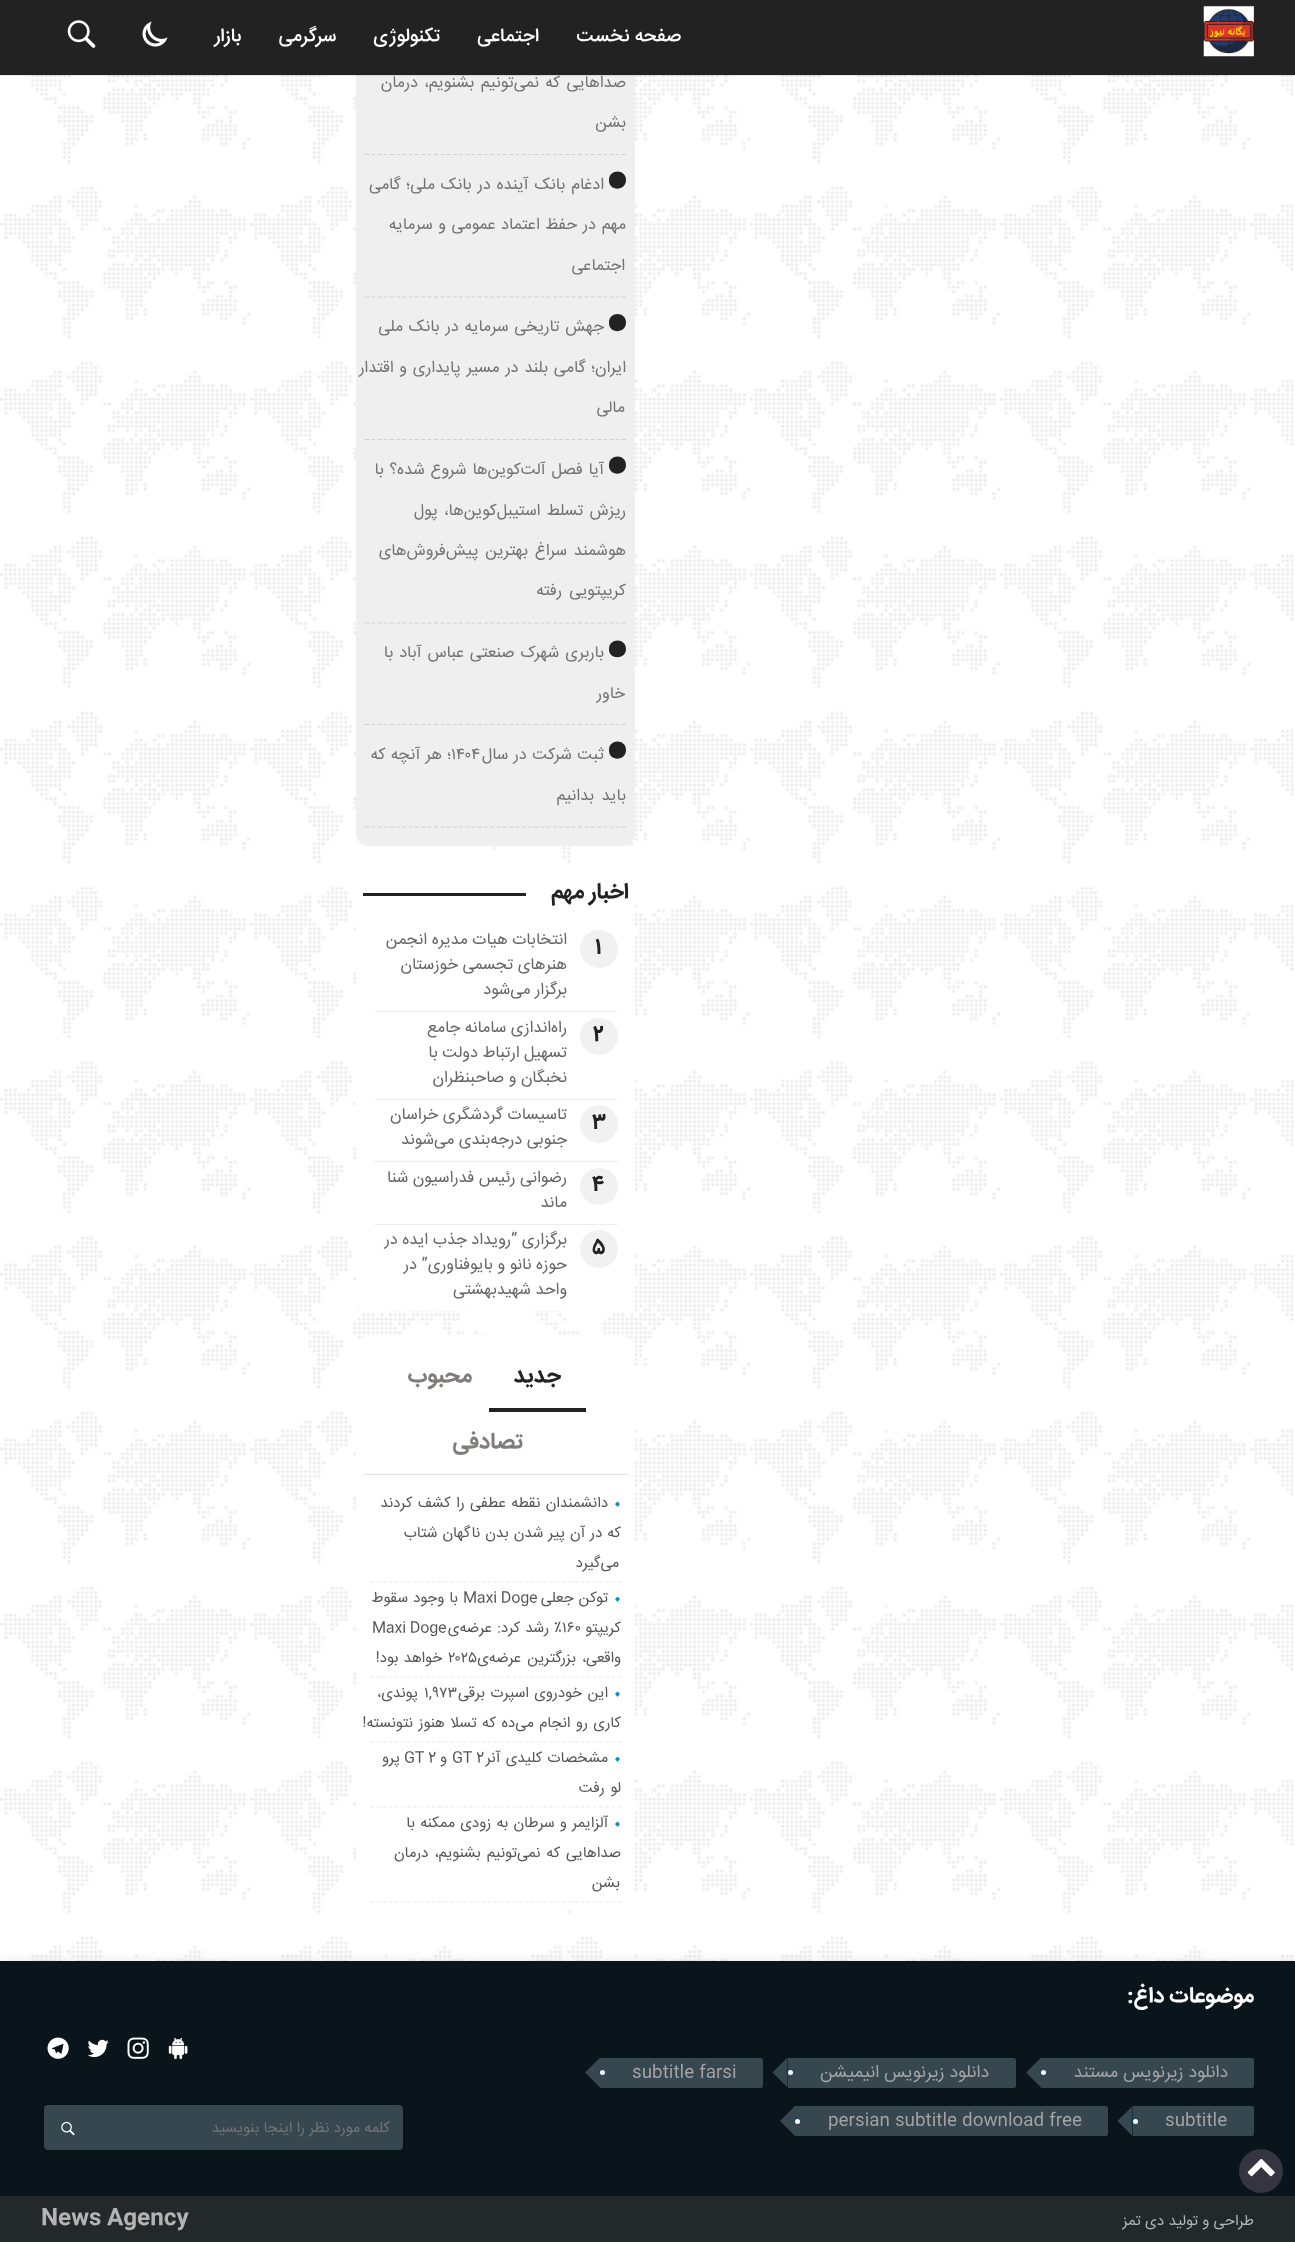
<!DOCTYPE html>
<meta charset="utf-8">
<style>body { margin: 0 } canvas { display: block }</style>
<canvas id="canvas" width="1295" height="2242"></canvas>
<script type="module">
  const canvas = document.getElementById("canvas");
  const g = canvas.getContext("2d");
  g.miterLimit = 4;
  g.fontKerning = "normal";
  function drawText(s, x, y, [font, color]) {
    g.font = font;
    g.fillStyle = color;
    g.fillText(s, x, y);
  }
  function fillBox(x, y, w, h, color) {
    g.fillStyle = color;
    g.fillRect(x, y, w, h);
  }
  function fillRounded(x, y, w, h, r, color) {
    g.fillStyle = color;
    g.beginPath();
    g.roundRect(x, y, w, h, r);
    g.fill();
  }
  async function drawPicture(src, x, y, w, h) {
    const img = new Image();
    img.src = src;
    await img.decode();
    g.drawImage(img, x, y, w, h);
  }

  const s1 = ["500 18.75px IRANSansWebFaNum", "#FFFFFF"];
  const s2 = ["16.25px IRANSansWebFaNum", "#737373"];
  const s3 = ["bold 22px IRANSansWebFaNum", "#222222"];
  const s4 = ["bold 20px IRANSansWebFaNum", "#222222"];
  const s5 = ["16.25px IRANSansWebFaNum", "#666666"];
  const s6 = ["bold 22.5px IRANSansWebFaNum", "#222222"];
  const s7 = ["bold 22.5px IRANSansWebFaNum", "#807C7C"];
  const s8 = ["15px IRANSansWebFaNum", "#555555"];
  const s9 = ["bold 22px IRANSansWebFaNum", "#FFFFFF"];
  const s10 = ["17.5px IRANSansWebFaNum", "#A5A4A4"];
  const s11 = ["15px IRANSansWebFaNum", "#737373"];
  const s12 = ["15px IRANSansWebFaNum", "#ADB5BD"];
  const s13 = ["bold 22.5px IRANSansWebFaNum", "#B3B3B3"];

  fillBox(0, 0, 1295, 2242, "#FFFFFF");
  await drawPicture("pic1.png", 0, 75, 1294, 1886);
  g.fillStyle = "rgba(0, 0, 0, 0.16)";
  g.filter = "blur(7.5px)";
  g.beginPath();
  g.rect(0, 1965, 1295, 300);
  g.fill();
  g.filter = "none";
  fillBox(0, 1961, 1295, 235, "#09151B");
  g.fillStyle = "#343541";
  g.beginPath();
  g.arc(1261, 2171, 22, 0, Math.PI * 2);
  g.fill();
  await drawPicture("pic2.png", 1247, 2159, 28, 18);
  fillRounded(356, -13, 279, 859, 13, "#EFEFEF");
  g.fillStyle = "rgba(0, 0, 0, 0.1)";
  g.filter = "blur(0.5px)";
  g.beginPath();
  g.rect(0, 1, 1295, 75);
  g.fill();
  g.filter = "none";
  fillBox(0, 0, 1295, 75, "#222222");
  await drawPicture("pic3.png", 1203, 6, 51, 51);
  g.direction = "rtl";
  drawText("صفحه نخست", 681, 41, s1);
  drawText("اجتماعی", 539, 41, s1);
  drawText("تکنولوژی", 440, 41, s1);
  drawText("سرگرمی", 336, 41, s1);
  drawText("بازار", 241, 41, s1);
  await drawPicture("pic4.png", 142, 21, 26, 26);
  await drawPicture("pic5.png", 67, 20, 29, 28);
  g.beginPath();
  g.moveTo(365, 154.5);
  g.lineTo(626, 154.5);
  g.strokeStyle = "#CFCFD0";
  g.lineWidth = 1.2;
  g.setLineDash([3.75, 2.52]);
  g.stroke();
  g.letterSpacing = "-0.25px";
  g.wordSpacing = "2px";
  drawText("صداهایی که نمی‌تونیم بشنویم، درمان", 626, 87, s2);
  g.wordSpacing = "0px";
  drawText("بشن", 626, 127, s2);
  g.beginPath();
  g.moveTo(365, 297);
  g.lineTo(626, 297);
  g.stroke();
  g.fillStyle = "#222222";
  g.beginPath();
  g.moveTo(626, 180);
  g.bezierCurveTo(626, 191.5, 608.5, 191.5, 609, 180);
  g.bezierCurveTo(609, 168.5, 626, 168.5, 626, 180);
  g.closePath();
  g.fill();
  g.wordSpacing = "1.5px";
  drawText("ادغام بانک آینده در بانک ملی؛ گامی", 604, 189, s2);
  g.wordSpacing = "1.25px";
  drawText("مهم در حفظ اعتماد عمومی و سرمایه", 626, 229, s2);
  g.wordSpacing = "0px";
  drawText("اجتماعی", 625, 270, s2);
  g.beginPath();
  g.moveTo(365, 439.5);
  g.lineTo(626, 439.5);
  g.stroke();
  g.fillStyle = "#222222";
  g.beginPath();
  g.moveTo(626, 322.5);
  g.bezierCurveTo(626, 334, 608.5, 334, 609, 322.5);
  g.bezierCurveTo(609, 311, 626, 311, 626, 322.5);
  g.closePath();
  g.fill();
  g.wordSpacing = "1.5px";
  drawText("جهش تاریخی سرمایه در بانک ملی", 604, 331, s2);
  drawText("ایران؛ گامی بلند در مسیر پایداری و اقتدار", 626, 372, s2);
  g.wordSpacing = "0px";
  drawText("مالی", 625, 412, s2);
  g.beginPath();
  g.moveTo(365, 623);
  g.lineTo(626, 623);
  g.stroke();
  g.fillStyle = "#222222";
  g.beginPath();
  g.moveTo(626, 465);
  g.bezierCurveTo(626, 476.5, 608.5, 476.5, 609, 465);
  g.bezierCurveTo(609, 453.5, 626, 453.5, 626, 465);
  g.closePath();
  g.fill();
  g.wordSpacing = "1.5px";
  drawText("آیا فصل آلت‌کوین‌ها شروع شده؟ با", 604, 474, s2);
  g.wordSpacing = "2px";
  drawText("ریزش تسلط استیبل‌کوین‌ها، پول", 626, 515, s2);
  g.wordSpacing = "2.5px";
  drawText("هوشمند سراغ بهترین پیش‌فروش‌های", 626, 555, s2);
  g.wordSpacing = "3px";
  drawText("کریپتویی رفته", 626, 595, s2);
  g.beginPath();
  g.moveTo(365, 724.5);
  g.lineTo(626, 724.5);
  g.stroke();
  g.fillStyle = "#222222";
  g.beginPath();
  g.moveTo(626, 649);
  g.bezierCurveTo(626, 660, 608.5, 660, 609, 649);
  g.bezierCurveTo(609, 637.5, 626, 637.5, 626, 649);
  g.closePath();
  g.fill();
  g.wordSpacing = "1.5px";
  drawText("باربری شهرک صنعتی عباس آباد با", 604, 657, s2);
  g.wordSpacing = "0px";
  drawText("خاور", 625, 698, s2);
  g.beginPath();
  g.moveTo(365, 827);
  g.lineTo(626, 827);
  g.stroke();
  g.fillStyle = "#222222";
  g.beginPath();
  g.moveTo(626, 750);
  g.bezierCurveTo(626, 761.5, 608.5, 761.5, 609, 750);
  g.bezierCurveTo(609, 738.5, 626, 738.5, 626, 750);
  g.closePath();
  g.fill();
  g.wordSpacing = "1px";
  drawText("ثبت شرکت در سال", 604, 759, s2);
  g.wordSpacing = "0px";
  g.direction = "ltr";
  drawText("۱۴۰۴", 451, 759, s2);
  g.wordSpacing = "1px";
  g.direction = "rtl";
  drawText("؛ هر آنچه که", 451, 759, s2);
  g.wordSpacing = "3px";
  drawText("باید بدانیم", 626, 800, s2);
  fillRounded(356, 871, 279, 440, 13, "#FFFFFF");
  g.letterSpacing = "0px";
  g.wordSpacing = "0px";
  drawText("اخبار مهم", 629, 898, s3);
  fillBox(363, 893, 163, 3, "#222222");
  fillBox(374, 1011, 244, 1, "#EEEEEE");
  g.fillStyle = "#F1F1F1";
  g.beginPath();
  g.arc(599, 949, 19, 0, Math.PI * 2);
  g.fill();
  g.direction = "ltr";
  drawText("1", 595, 953, s4);
  g.direction = "rtl";
  drawText("انتخابات هیات مدیره انجمن", 567, 944, s5);
  drawText("هنرهای تجسمی خوزستان", 567, 969, s5);
  drawText("برگزار می‌شود", 567, 994, s5);
  fillBox(374, 1099, 244, 1, "#EEEEEE");
  fillRounded(580, 1018, 38, 37, 18.5, "#F1F1F1");
  g.direction = "ltr";
  drawText("2", 593, 1040, s4);
  g.direction = "rtl";
  drawText("راه‌اندازی سامانه‌ جامع", 567, 1032, s5);
  drawText("تسهیل ارتباط دولت با", 567, 1057, s5);
  drawText("نخبگان و صاحبنظران", 567, 1082, s5);
  fillBox(374, 1161, 244, 1, "#EEEEEE");
  g.fillStyle = "#F1F1F1";
  g.beginPath();
  g.arc(599, 1124, 19, 0, Math.PI * 2);
  g.fill();
  g.direction = "ltr";
  drawText("3", 592, 1128, s4);
  g.direction = "rtl";
  drawText("تاسیسات گردشگری خراسان", 567, 1119, s5);
  drawText("جنوبی درجه‌بندی می‌شوند", 567, 1144, s5);
  fillBox(374, 1224, 244, 1, "#EEEEEE");
  fillRounded(580, 1168, 38, 37, 18.5, "#F1F1F1");
  g.direction = "ltr";
  drawText("4", 592, 1190, s4);
  g.direction = "rtl";
  drawText("رضوانی رئیس فدراسیون شنا", 567, 1182, s5);
  drawText("ماند", 567, 1207, s5);
  g.fillStyle = "#F1F1F1";
  g.beginPath();
  g.arc(599, 1249, 19, 0, Math.PI * 2);
  g.fill();
  g.direction = "ltr";
  drawText("5", 592, 1253, s4);
  g.direction = "rtl";
  drawText("برگزاری “رویداد جذب ایده در", 567, 1244, s5);
  drawText("حوزه نانو و بایوفناوری” در", 567, 1269, s5);
  drawText("واحد شهیدبهشتی", 567, 1294, s5);
  fillRounded(356, 1336, 279, 575, 13, "#FFFFFF");
  fillBox(364, 1474, 264, 1, "#DEE2E6");
  fillBox(489, 1408, 97, 4, "#222222");
  drawText("جدید", 561, 1382, s6);
  drawText("محبوب", 472, 1382, s7);
  drawText("تصادفی", 523, 1448, s7);
  g.beginPath();
  g.moveTo(370, 1582);
  g.lineTo(621, 1582);
  g.strokeStyle = "#E9E9E9";
  g.setLineDash([3.75, 2.44]);
  g.stroke();
  g.fillStyle = "#068DC3";
  g.beginPath();
  g.moveTo(620, 1504);
  g.lineTo(617.5, 1507);
  g.lineTo(615, 1504);
  g.lineTo(617.5, 1501.5);
  g.closePath();
  g.fill();
  g.letterSpacing = "-0.25px";
  g.wordSpacing = "1.5px";
  drawText("دانشمندان نقطه عطفی را کشف کردند", 608, 1507, s8);
  g.wordSpacing = "1px";
  drawText("که در آن پیر شدن بدن ناگهان شتاب", 621, 1537, s8);
  g.wordSpacing = "0px";
  drawText("می‌گیرد", 619, 1567, s8);
  g.beginPath();
  g.moveTo(370, 1677);
  g.lineTo(621, 1677);
  g.stroke();
  g.fillStyle = "#068DC3";
  g.beginPath();
  g.moveTo(620, 1599);
  g.lineTo(617.5, 1602);
  g.lineTo(615, 1599);
  g.lineTo(617.5, 1596.5);
  g.closePath();
  g.fill();
  g.wordSpacing = "1px";
  drawText("توکن جعلی", 608, 1602, s8);
  g.wordSpacing = "0px";
  g.direction = "ltr";
  drawText("Maxi Doge", 463, 1602, s8);
  g.wordSpacing = "1px";
  g.direction = "rtl";
  drawText("با وجود سقوط", 458, 1602, s8);
  g.wordSpacing = "0px";
  drawText("کریپتو", 621, 1632, s8);
  g.direction = "ltr";
  drawText("۱۶۰", 562, 1632, s8);
  g.wordSpacing = "1px";
  g.direction = "rtl";
  drawText("٪ رشد کرد: عرضه‌ی", 562, 1632, s8);
  g.wordSpacing = "0px";
  g.direction = "ltr";
  drawText("Maxi Doge", 372, 1632, s8);
  g.wordSpacing = "2px";
  g.direction = "rtl";
  drawText("واقعی، بزرگترین عرضه‌ی", 621, 1662, s8);
  g.wordSpacing = "0px";
  g.direction = "ltr";
  drawText("۲۰۲۵", 448, 1662, s8);
  g.wordSpacing = "1px";
  g.direction = "rtl";
  drawText("خواهد بود!", 442, 1662, s8);
  g.beginPath();
  g.moveTo(370, 1742);
  g.lineTo(621, 1742);
  g.stroke();
  g.fillStyle = "#068DC3";
  g.beginPath();
  g.moveTo(620, 1694);
  g.lineTo(617.5, 1697);
  g.lineTo(615, 1694);
  g.lineTo(617.5, 1691.5);
  g.closePath();
  g.fill();
  g.wordSpacing = "1.5px";
  drawText("این خودروی اسپرت برقی", 608, 1697, s8);
  g.wordSpacing = "0px";
  g.direction = "ltr";
  drawText("۱,۹۷۳", 424, 1697, s8);
  g.direction = "rtl";
  drawText("پوندی،", 418, 1697, s8);
  g.wordSpacing = "1.5px";
  drawText("کاری رو انجام می‌ده که تسلا هنوز نتونسته!", 621, 1727, s8);
  g.beginPath();
  g.moveTo(370, 1807);
  g.lineTo(621, 1807);
  g.stroke();
  g.fillStyle = "#068DC3";
  g.beginPath();
  g.moveTo(620, 1759);
  g.lineTo(617.5, 1762);
  g.lineTo(615, 1759);
  g.lineTo(617.5, 1756.5);
  g.closePath();
  g.fill();
  drawText("مشخصات کلیدی آنر", 608, 1762, s8);
  g.wordSpacing = "0px";
  g.direction = "ltr";
  drawText("GT 2", 452, 1762, s8);
  g.direction = "rtl";
  drawText("و", 447, 1762, s8);
  g.direction = "ltr";
  drawText("GT 2", 404, 1762, s8);
  g.direction = "rtl";
  drawText("پرو", 400, 1762, s8);
  g.wordSpacing = "2px";
  drawText("لو رفت", 621, 1792, s8);
  g.beginPath();
  g.moveTo(370, 1902);
  g.lineTo(621, 1902);
  g.stroke();
  g.fillStyle = "#068DC3";
  g.beginPath();
  g.moveTo(620, 1824);
  g.lineTo(617.5, 1827);
  g.lineTo(615, 1824);
  g.lineTo(617.5, 1821.5);
  g.closePath();
  g.fill();
  g.wordSpacing = "1.25px";
  drawText("آلزایمر و سرطان به زودی ممکنه با", 608, 1827, s8);
  g.wordSpacing = "2px";
  drawText("صداهایی که نمی‌تونیم بشنویم، درمان", 621, 1857, s8);
  g.wordSpacing = "0px";
  drawText("بشن", 620, 1887, s8);
  g.letterSpacing = "0px";
  drawText("موضوعات داغ:", 1254, 2002, s9);
  g.fillStyle = "#37474F";
  g.beginPath();
  g.roundRect(1041, 2058, 213, 30, [0, 2.5, 2.5, 0]);
  g.fill();
  drawText("دانلود زیرنویس مستند", 1228, 2077, s10);
  g.fillStyle = "#37474F";
  g.beginPath();
  g.moveTo(1041, 2057.5);
  g.lineTo(1041, 2087.5);
  g.lineTo(1026, 2072.5);
  g.closePath();
  g.fill();
  g.fillStyle = "#004977";
  g.filter = "blur(1px)";
  g.beginPath();
  g.roundRect(1040, 2069, 5, 5, 2.5);
  g.fill();
  g.filter = "none";
  g.fillStyle = "#FFFFFF";
  g.beginPath();
  g.arc(1043.5, 2072.5, 2.5, 0, Math.PI * 2);
  g.fill();
  g.fillStyle = "#37474F";
  g.beginPath();
  g.roundRect(788, 2058, 228, 30, [0, 2.5, 2.5, 0]);
  g.fill();
  drawText("دانلود زیرنویس انیمیشن", 989, 2077, s10);
  g.fillStyle = "#37474F";
  g.beginPath();
  g.moveTo(787.5, 2057.5);
  g.lineTo(787.5, 2087.5);
  g.lineTo(772.5, 2072.5);
  g.closePath();
  g.fill();
  g.fillStyle = "#004977";
  g.filter = "blur(1px)";
  g.beginPath();
  g.roundRect(786, 2069, 5, 5, 2.5);
  g.fill();
  g.filter = "none";
  g.fillStyle = "#FFFFFF";
  g.beginPath();
  g.arc(790.5, 2072.5, 2.5, 0, Math.PI * 2);
  g.fill();
  g.fillStyle = "#37474F";
  g.beginPath();
  g.roundRect(600, 2058, 163, 30, [0, 2.5, 2.5, 0]);
  g.fill();
  g.direction = "ltr";
  drawText("subtitle farsi", 632, 2077, s10);
  g.fillStyle = "#37474F";
  g.beginPath();
  g.moveTo(600, 2057.5);
  g.lineTo(600, 2087.5);
  g.lineTo(585, 2072.5);
  g.closePath();
  g.fill();
  g.fillStyle = "#004977";
  g.filter = "blur(1px)";
  g.beginPath();
  g.roundRect(599, 2069, 5, 5, 2.5);
  g.fill();
  g.filter = "none";
  g.fillStyle = "#FFFFFF";
  g.beginPath();
  g.arc(602.5, 2072.5, 2.5, 0, Math.PI * 2);
  g.fill();
  g.fillStyle = "#37474F";
  g.beginPath();
  g.roundRect(1133, 2106, 121, 30, [0, 2.5, 2.5, 0]);
  g.fill();
  drawText("subtitle", 1165, 2125, s10);
  g.fillStyle = "#37474F";
  g.beginPath();
  g.moveTo(1132.5, 2106);
  g.lineTo(1132.5, 2136);
  g.lineTo(1117.5, 2121);
  g.closePath();
  g.fill();
  g.fillStyle = "#004977";
  g.filter = "blur(1px)";
  g.beginPath();
  g.roundRect(1131, 2118, 5, 5, 2.5);
  g.fill();
  g.filter = "none";
  g.fillStyle = "#FFFFFF";
  g.beginPath();
  g.arc(1135.5, 2121.5, 2.5, 0, Math.PI * 2);
  g.fill();
  g.fillStyle = "#37474F";
  g.beginPath();
  g.roundRect(795, 2106, 313, 30, [0, 2.5, 2.5, 0]);
  g.fill();
  drawText("persian subtitle download free", 828, 2125, s10);
  g.fillStyle = "#37474F";
  g.beginPath();
  g.moveTo(795, 2106);
  g.lineTo(795, 2136);
  g.lineTo(780, 2121);
  g.closePath();
  g.fill();
  g.fillStyle = "#004977";
  g.filter = "blur(1px)";
  g.beginPath();
  g.roundRect(794, 2118, 5, 5, 2.5);
  g.fill();
  g.filter = "none";
  g.fillStyle = "#FFFFFF";
  g.beginPath();
  g.arc(797.5, 2121.5, 2.5, 0, Math.PI * 2);
  g.fill();
  await drawPicture("pic6.png", 168, 2037, 20, 23);
  await drawPicture("pic7.png", 127, 2037, 22, 22);
  await drawPicture("pic8.png", 87, 2039, 22, 19);
  await drawPicture("pic9.png", 47, 2037, 22, 22);
  g.beginPath();
  g.roundRect(42.5, 2104.5, 361, 47, [4.5, 0, 0, 4.5]);
  g.strokeStyle = "#081318";
  g.lineWidth = 3;
  g.setLineDash([]);
  g.stroke();
  fillRounded(44, 2105, 359, 45, 4, "#37474F");
  g.direction = "rtl";
  drawText("كلمه مورد نظر را اينجا بنويسيد", 390, 2132, s11);
  await drawPicture("pic10.png", 61, 2121, 14, 15);
  fillBox(0, 2196, 1295, 46, "#23292B");
  drawText("طراحی و تولید", 1254, 2225, s12);
  drawText("دی تمز", 1164, 2225, s12);
  g.direction = "ltr";
  drawText("News Agency", 41, 2224, s13);
</script>
